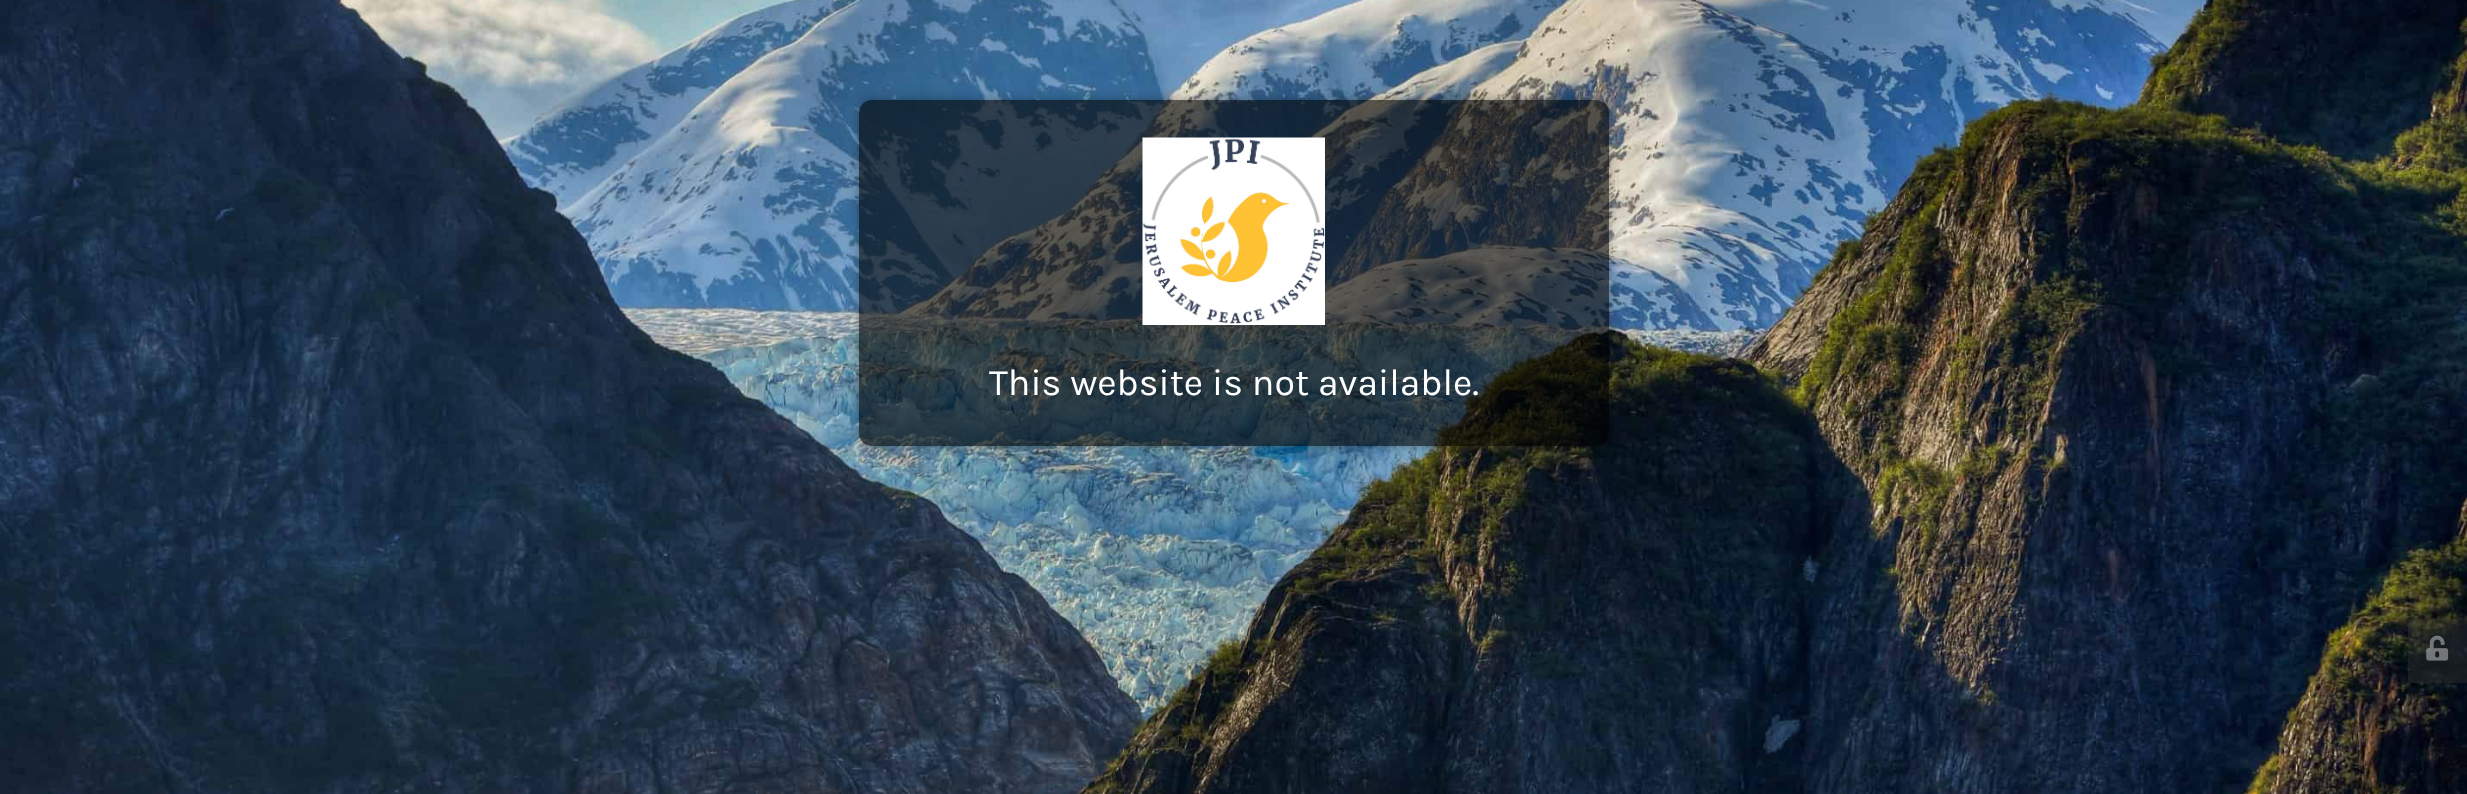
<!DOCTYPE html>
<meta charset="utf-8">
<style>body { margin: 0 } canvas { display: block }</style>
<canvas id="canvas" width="2467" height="794"></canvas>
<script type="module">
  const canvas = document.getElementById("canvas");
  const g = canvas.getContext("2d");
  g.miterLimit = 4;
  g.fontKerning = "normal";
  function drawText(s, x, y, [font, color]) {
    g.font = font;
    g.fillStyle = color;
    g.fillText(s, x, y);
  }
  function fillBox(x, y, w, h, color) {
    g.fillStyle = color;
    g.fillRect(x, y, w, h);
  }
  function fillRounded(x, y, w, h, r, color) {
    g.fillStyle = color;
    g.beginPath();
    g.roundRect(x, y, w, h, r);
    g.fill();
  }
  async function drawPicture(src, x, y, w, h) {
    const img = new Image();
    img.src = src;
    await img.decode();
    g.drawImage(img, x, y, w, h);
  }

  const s1 = ["37.5px Karla", "#FFFFFF"];

  fillBox(0, 0, 2467, 794, "#FFFFFF");
  await drawPicture("pic1.png", 0, 0, 2467, 794);
  g.save();
  g.beginPath();
  g.moveTo(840, 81);
  g.lineTo(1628, 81);
  g.lineTo(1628, 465);
  g.lineTo(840, 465);
  g.closePath();
  g.moveTo(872, 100);
  g.lineTo(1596, 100);
  g.bezierCurveTo(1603, 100, 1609, 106, 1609, 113);
  g.lineTo(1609, 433);
  g.bezierCurveTo(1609, 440, 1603, 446, 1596, 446);
  g.lineTo(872, 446);
  g.bezierCurveTo(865, 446, 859, 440, 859, 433);
  g.lineTo(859, 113);
  g.bezierCurveTo(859, 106, 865, 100, 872, 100);
  g.closePath();
  g.clip("evenodd");
  g.fillStyle = "rgba(0, 0, 0, 0.33)";
  g.filter = "blur(6px)";
  g.beginPath();
  g.roundRect(859, 100, 750, 346, 13);
  g.fill();
  g.filter = "none";
  g.restore();
  fillRounded(859, 100, 750, 346, 13, "rgba(0, 0, 0, 0.6)");
  await drawPicture("pic2.png", 1142, 137, 183, 188);
  drawText("This website is not available.", 989, 395, s1);
  g.fillStyle = "rgba(53, 53, 53, 0.4)";
  g.beginPath();
  g.moveTo(2413, 618);
  g.lineTo(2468, 618);
  g.lineTo(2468, 683);
  g.lineTo(2413, 683);
  g.bezierCurveTo(2410, 683, 2408, 681, 2408, 678);
  g.lineTo(2408, 623);
  g.bezierCurveTo(2408, 620, 2410, 618, 2413, 618);
  g.closePath();
  g.fill();
  await drawPicture("pic3.png", 2426, 635, 23, 26);
</script>
